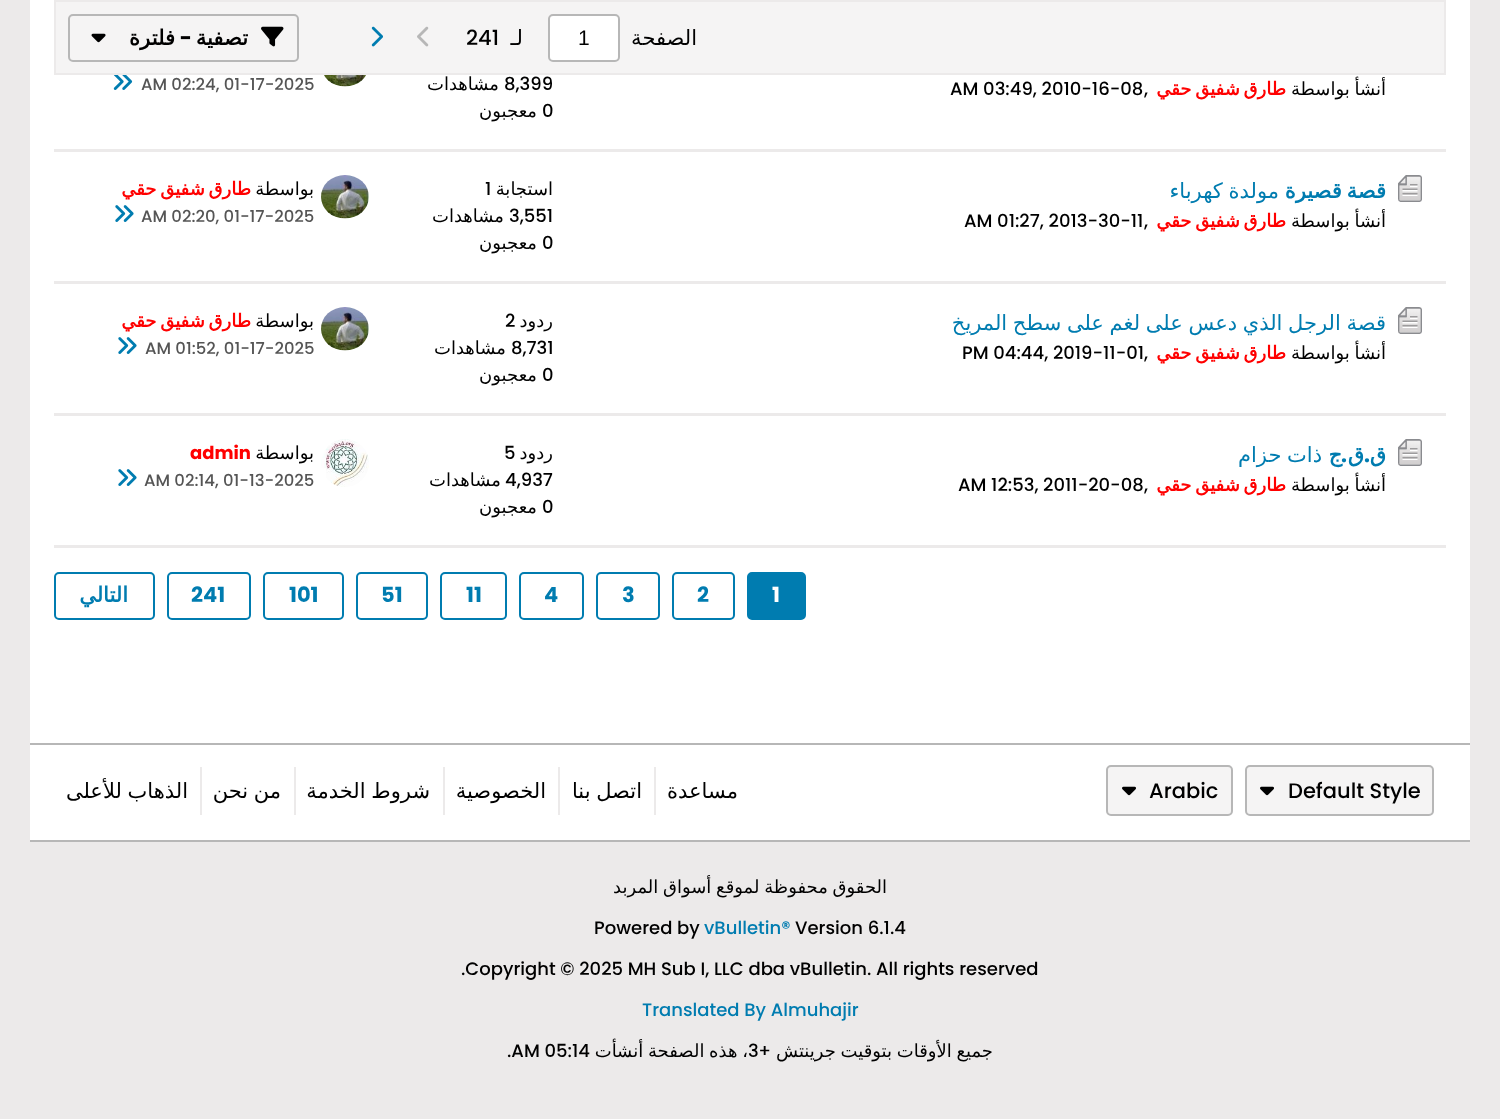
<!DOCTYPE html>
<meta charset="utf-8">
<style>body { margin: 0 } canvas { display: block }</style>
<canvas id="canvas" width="1500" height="1119"></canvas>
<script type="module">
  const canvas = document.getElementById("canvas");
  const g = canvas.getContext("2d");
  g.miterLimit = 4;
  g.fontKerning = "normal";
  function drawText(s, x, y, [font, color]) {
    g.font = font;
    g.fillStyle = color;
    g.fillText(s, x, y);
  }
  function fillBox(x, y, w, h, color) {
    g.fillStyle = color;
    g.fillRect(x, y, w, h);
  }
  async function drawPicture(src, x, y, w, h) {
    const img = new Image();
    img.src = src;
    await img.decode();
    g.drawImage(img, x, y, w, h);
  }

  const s1 = ["21px DejaVu Sans", "#000000"];
  const s2 = ["21px Liberation Sans", "#000000"];
  const s3 = ["500 21px Poppins", "#000000"];
  const s4 = ["bold 21px DejaVu Sans", "#000000"];
  const s5 = ["bold 21px Poppins", "#000000"];
  const s6 = ["18px DejaVu Sans", "#000000"];
  const s7 = ["bold 18px DejaVu Sans", "#FF0000"];
  const s8 = ["500 18px Poppins", "#000000"];
  const s9 = ["500 16.5px Poppins", "#555555"];
  const s10 = ["bold 21px DejaVu Sans", "#007CB0"];
  const s11 = ["21px DejaVu Sans", "#007CB0"];
  const s12 = ["bold 21px Poppins", "#007CB0"];
  const s13 = ["bold 18px Poppins", "#FF0000"];
  const s14 = ["bold 21px Poppins", "#FFFFFF"];
  const s15 = ["500 18px Poppins", "#007CB0"];

  fillBox(0, 0, 1500, 1119, "#ECEAEA");
  fillBox(30, 0, 1440, 743, "#FFFFFF");
  g.fillStyle = "#F5F4F4";
  g.beginPath();
  g.rect(55, 1, 1390, 73);
  g.fill();
  g.strokeStyle = "#ECEAEA";
  g.lineWidth = 2;
  g.stroke();
  g.direction = "rtl";
  drawText("الصفحة", 697, 45, s1);
  g.fillStyle = "#FFFFFF";
  g.beginPath();
  g.roundRect(549, 15, 70, 46, 4);
  g.fill();
  g.strokeStyle = "#B7B7B7";
  g.stroke();
  g.direction = "ltr";
  drawText("1", 578, 45, s2);
  g.direction = "rtl";
  drawText("لـ", 523, 45, s1);
  g.direction = "ltr";
  drawText("241", 466, 45, s3);
  await drawPicture("pic1.png", 417, 26, 12, 21);
  await drawPicture("pic2.png", 371, 26, 12, 21);
  g.beginPath();
  g.roundRect(69, 15, 229, 46, 4);
  g.stroke();
  await drawPicture("pic3.png", 261, 26, 23, 21);
  g.direction = "rtl";
  drawText("تصفية", 248, 45, s4);
  drawText("-", 192, 45, s5);
  drawText("فلترة", 175, 45, s4);
  await drawPicture("pic4.png", 91, 33, 15, 10);
  fillBox(54, 547, 1392, 1, "#ECEAEA");
  g.wordSpacing = "-1px";
  drawText("أنشأ بواسطة", 1386, 95, s6);
  g.wordSpacing = "-2px";
  drawText("طارق شفيق حقي", 1286, 95, s7);
  g.wordSpacing = "0px";
  g.direction = "ltr";
  drawText(",", 1144, 95, s8);
  drawText("AM 03:49, 2010-16-08", 950, 95, s8);
  drawText("8,399", 504, 90, s8);
  g.direction = "rtl";
  drawText("مشاهدات", 499, 90, s6);
  g.direction = "ltr";
  drawText("0", 542, 117, s8);
  g.direction = "rtl";
  drawText("معجبون", 537, 117, s6);
  await drawPicture("pic5.png", 324, 75, 42, 12);
  g.direction = "ltr";
  drawText("AM 02:24, 01-17-2025", 141, 90, s9);
  await drawPicture("pic6.png", 113, 75, 20, 15);
  fillBox(1386, 149, 60, 3, "#ECEAEA");
  fillBox(54, 149, 1332, 1, "#ECEAEA");
  fillBox(1386, 281, 60, 3, "#ECEAEA");
  await drawPicture("pic7.png", 1398, 175, 24, 27);
  fillBox(54, 150, 1332, 2, "#ECEAEA");
  fillBox(54, 281, 1332, 1, "#ECEAEA");
  g.wordSpacing = "-2px";
  g.direction = "rtl";
  drawText("قصة قصيرة", 1386, 198, s10);
  g.wordSpacing = "-1px";
  drawText("مولدة كهرباء", 1279, 198, s11);
  drawText("أنشأ بواسطة", 1386, 227, s6);
  g.wordSpacing = "-2px";
  drawText("طارق شفيق حقي", 1286, 227, s7);
  g.wordSpacing = "0px";
  g.direction = "ltr";
  drawText(",", 1144, 227, s8);
  drawText("AM 01:27, 2013-30-11", 964, 227, s8);
  g.direction = "rtl";
  drawText("استجابة", 553, 195, s6);
  g.direction = "ltr";
  drawText("1", 485, 195, s8);
  drawText("3,551", 509, 222, s8);
  g.direction = "rtl";
  drawText("مشاهدات", 504, 222, s6);
  g.direction = "ltr";
  drawText("0", 542, 249, s8);
  g.direction = "rtl";
  drawText("معجبون", 537, 249, s6);
  await drawPicture("pic8.png", 321, 175, 48, 44);
  drawText("بواسطة", 314, 195, s6);
  g.wordSpacing = "-2px";
  drawText("طارق شفيق حقي", 251, 195, s7);
  g.wordSpacing = "0px";
  g.direction = "ltr";
  drawText("AM 02:20, 01-17-2025", 141, 222, s9);
  await drawPicture("pic9.png", 115, 205, 19, 17);
  fillBox(1386, 413, 60, 3, "#ECEAEA");
  await drawPicture("pic7.png", 1398, 307, 24, 27);
  fillBox(54, 282, 1332, 2, "#ECEAEA");
  fillBox(54, 413, 1332, 1, "#ECEAEA");
  g.wordSpacing = "-1px";
  g.direction = "rtl";
  drawText("قصة الرجل الذي دعس على لغم على سطح المريخ", 1386, 330, s11);
  drawText("أنشأ بواسطة", 1386, 359, s6);
  g.wordSpacing = "-2px";
  drawText("طارق شفيق حقي", 1286, 359, s7);
  g.wordSpacing = "0px";
  g.direction = "ltr";
  drawText(",", 1144, 359, s8);
  drawText("PM 04:44, 2019-11-01", 962, 359, s8);
  g.direction = "rtl";
  drawText("ردود", 553, 327, s6);
  g.direction = "ltr";
  drawText("2", 505, 327, s8);
  drawText("8,731", 511, 354, s8);
  g.direction = "rtl";
  drawText("مشاهدات", 506, 354, s6);
  g.direction = "ltr";
  drawText("0", 542, 381, s8);
  g.direction = "rtl";
  drawText("معجبون", 537, 381, s6);
  await drawPicture("pic10.png", 321, 307, 48, 44);
  drawText("بواسطة", 314, 327, s6);
  g.wordSpacing = "-2px";
  drawText("طارق شفيق حقي", 251, 327, s7);
  g.wordSpacing = "0px";
  g.direction = "ltr";
  drawText("AM 01:52, 01-17-2025", 145, 354, s9);
  await drawPicture("pic9.png", 118, 337, 19, 17);
  fillBox(1386, 545, 60, 2, "#ECEAEA");
  await drawPicture("pic7.png", 1398, 439, 24, 27);
  fillBox(54, 414, 1332, 2, "#ECEAEA");
  fillBox(54, 545, 1332, 2, "#ECEAEA");
  g.direction = "rtl";
  drawText("ق", 1386, 462, s10);
  drawText(".", 1370, 462, s12);
  drawText("ق", 1364, 462, s10);
  drawText(".", 1347, 462, s12);
  drawText("ج", 1342, 462, s10);
  g.wordSpacing = "-1px";
  drawText("ذات حزام", 1322, 462, s11);
  drawText("أنشأ بواسطة", 1386, 491, s6);
  g.wordSpacing = "-2px";
  drawText("طارق شفيق حقي", 1286, 491, s7);
  g.wordSpacing = "0px";
  g.direction = "ltr";
  drawText(",", 1144, 491, s8);
  drawText("AM 12:53, 2011-20-08", 958, 491, s8);
  g.direction = "rtl";
  drawText("ردود", 553, 459, s6);
  g.direction = "ltr";
  drawText("5", 504, 459, s8);
  drawText("4,937", 505, 486, s8);
  g.direction = "rtl";
  drawText("مشاهدات", 501, 486, s6);
  g.direction = "ltr";
  drawText("0", 542, 513, s8);
  g.direction = "rtl";
  drawText("معجبون", 537, 513, s6);
  await drawPicture("pic11.png", 321, 439, 48, 48);
  drawText("بواسطة", 314, 459, s6);
  g.direction = "ltr";
  drawText("admin", 190, 459, s13);
  drawText("AM 02:14, 01-13-2025", 144, 486, s9);
  await drawPicture("pic9.png", 118, 469, 19, 17);
  g.fillStyle = "#007CB0";
  g.beginPath();
  g.roundRect(748, 573, 57, 46, 4);
  g.fill();
  g.strokeStyle = "#007CB0";
  g.stroke();
  drawText("1", 772, 602, s14);
  g.beginPath();
  g.roundRect(673, 573, 61, 46, 4);
  g.stroke();
  drawText("2", 697, 602, s12);
  g.beginPath();
  g.roundRect(597, 573, 62, 46, 4);
  g.stroke();
  drawText("3", 622, 602, s12);
  g.beginPath();
  g.roundRect(520, 573, 63, 46, 4);
  g.stroke();
  drawText("4", 544, 602, s12);
  g.beginPath();
  g.roundRect(441, 573, 65, 46, 4);
  g.stroke();
  drawText("11", 466, 602, s12);
  g.beginPath();
  g.roundRect(357, 573, 70, 46, 4);
  g.stroke();
  drawText("51", 381, 602, s12);
  g.beginPath();
  g.roundRect(264, 573, 79, 46, 4);
  g.stroke();
  drawText("101", 289, 602, s12);
  g.beginPath();
  g.roundRect(168, 573, 82, 46, 4);
  g.stroke();
  drawText("241", 191, 602, s12);
  g.beginPath();
  g.roundRect(55, 573, 99, 46, 4);
  g.stroke();
  g.direction = "rtl";
  drawText("التالي", 128, 602, s10);
  fillBox(30, 745, 1440, 95, "#FFFFFF");
  fillBox(30, 743, 1440, 2, "#B7B7B7");
  fillBox(30, 840, 1440, 2, "#B7B7B7");
  g.fillStyle = "#F5F4F4";
  g.beginPath();
  g.roundRect(1246, 766, 187, 49, 4);
  g.fill();
  g.strokeStyle = "#B7B7B7";
  g.stroke();
  g.direction = "ltr";
  drawText("Default Style", 1288, 798, s3);
  await drawPicture("pic12.png", 1260, 786, 14, 10);
  g.fillStyle = "#F5F4F4";
  g.beginPath();
  g.roundRect(1107, 766, 125, 49, 4);
  g.fill();
  g.stroke();
  drawText("Arabic", 1149, 798, s3);
  await drawPicture("pic12.png", 1122, 786, 14, 10);
  g.direction = "rtl";
  drawText("مساعدة", 738, 798, s1);
  fillBox(654, 767, 2, 48, "#ECEAEA");
  g.wordSpacing = "-1px";
  drawText("اتصل بنا", 642, 798, s1);
  fillBox(558, 767, 2, 48, "#ECEAEA");
  g.wordSpacing = "0px";
  drawText("الخصوصية", 546, 798, s1);
  fillBox(443, 767, 2, 48, "#ECEAEA");
  g.wordSpacing = "-1px";
  drawText("شروط الخدمة", 430, 798, s1);
  fillBox(294, 767, 2, 48, "#ECEAEA");
  drawText("من نحن", 281, 798, s1);
  fillBox(200, 767, 2, 48, "#ECEAEA");
  drawText("الذهاب للأعلى", 188, 798, s1);
  drawText("الحقوق محفوظة لموقع أسواق المربد", 887, 893, s6);
  g.wordSpacing = "0px";
  g.direction = "ltr";
  drawText("Version 6.1.4", 795, 934, s8);
  drawText("vBulletin®", 704, 934, s15);
  drawText("Powered by", 594, 934, s8);
  drawText(".Copyright © 2025 MH Sub I, LLC dba vBulletin. All rights reserved", 461, 975, s8);
  drawText("Translated By Almuhajir", 642, 1016, s15);
  g.wordSpacing = "-1px";
  g.direction = "rtl";
  drawText("جميع الأوقات بتوقيت جرينتش", 993, 1057, s6);
  g.wordSpacing = "0px";
  drawText("+", 771, 1057, s8);
  g.wordSpacing = "-1px";
  drawText("، هذه الصفحة أنشأت", 748, 1057, s6);
  g.wordSpacing = "0px";
  g.direction = "ltr";
  drawText("3", 748, 1057, s8);
  drawText(".AM 05:14", 507, 1057, s8);
</script>
